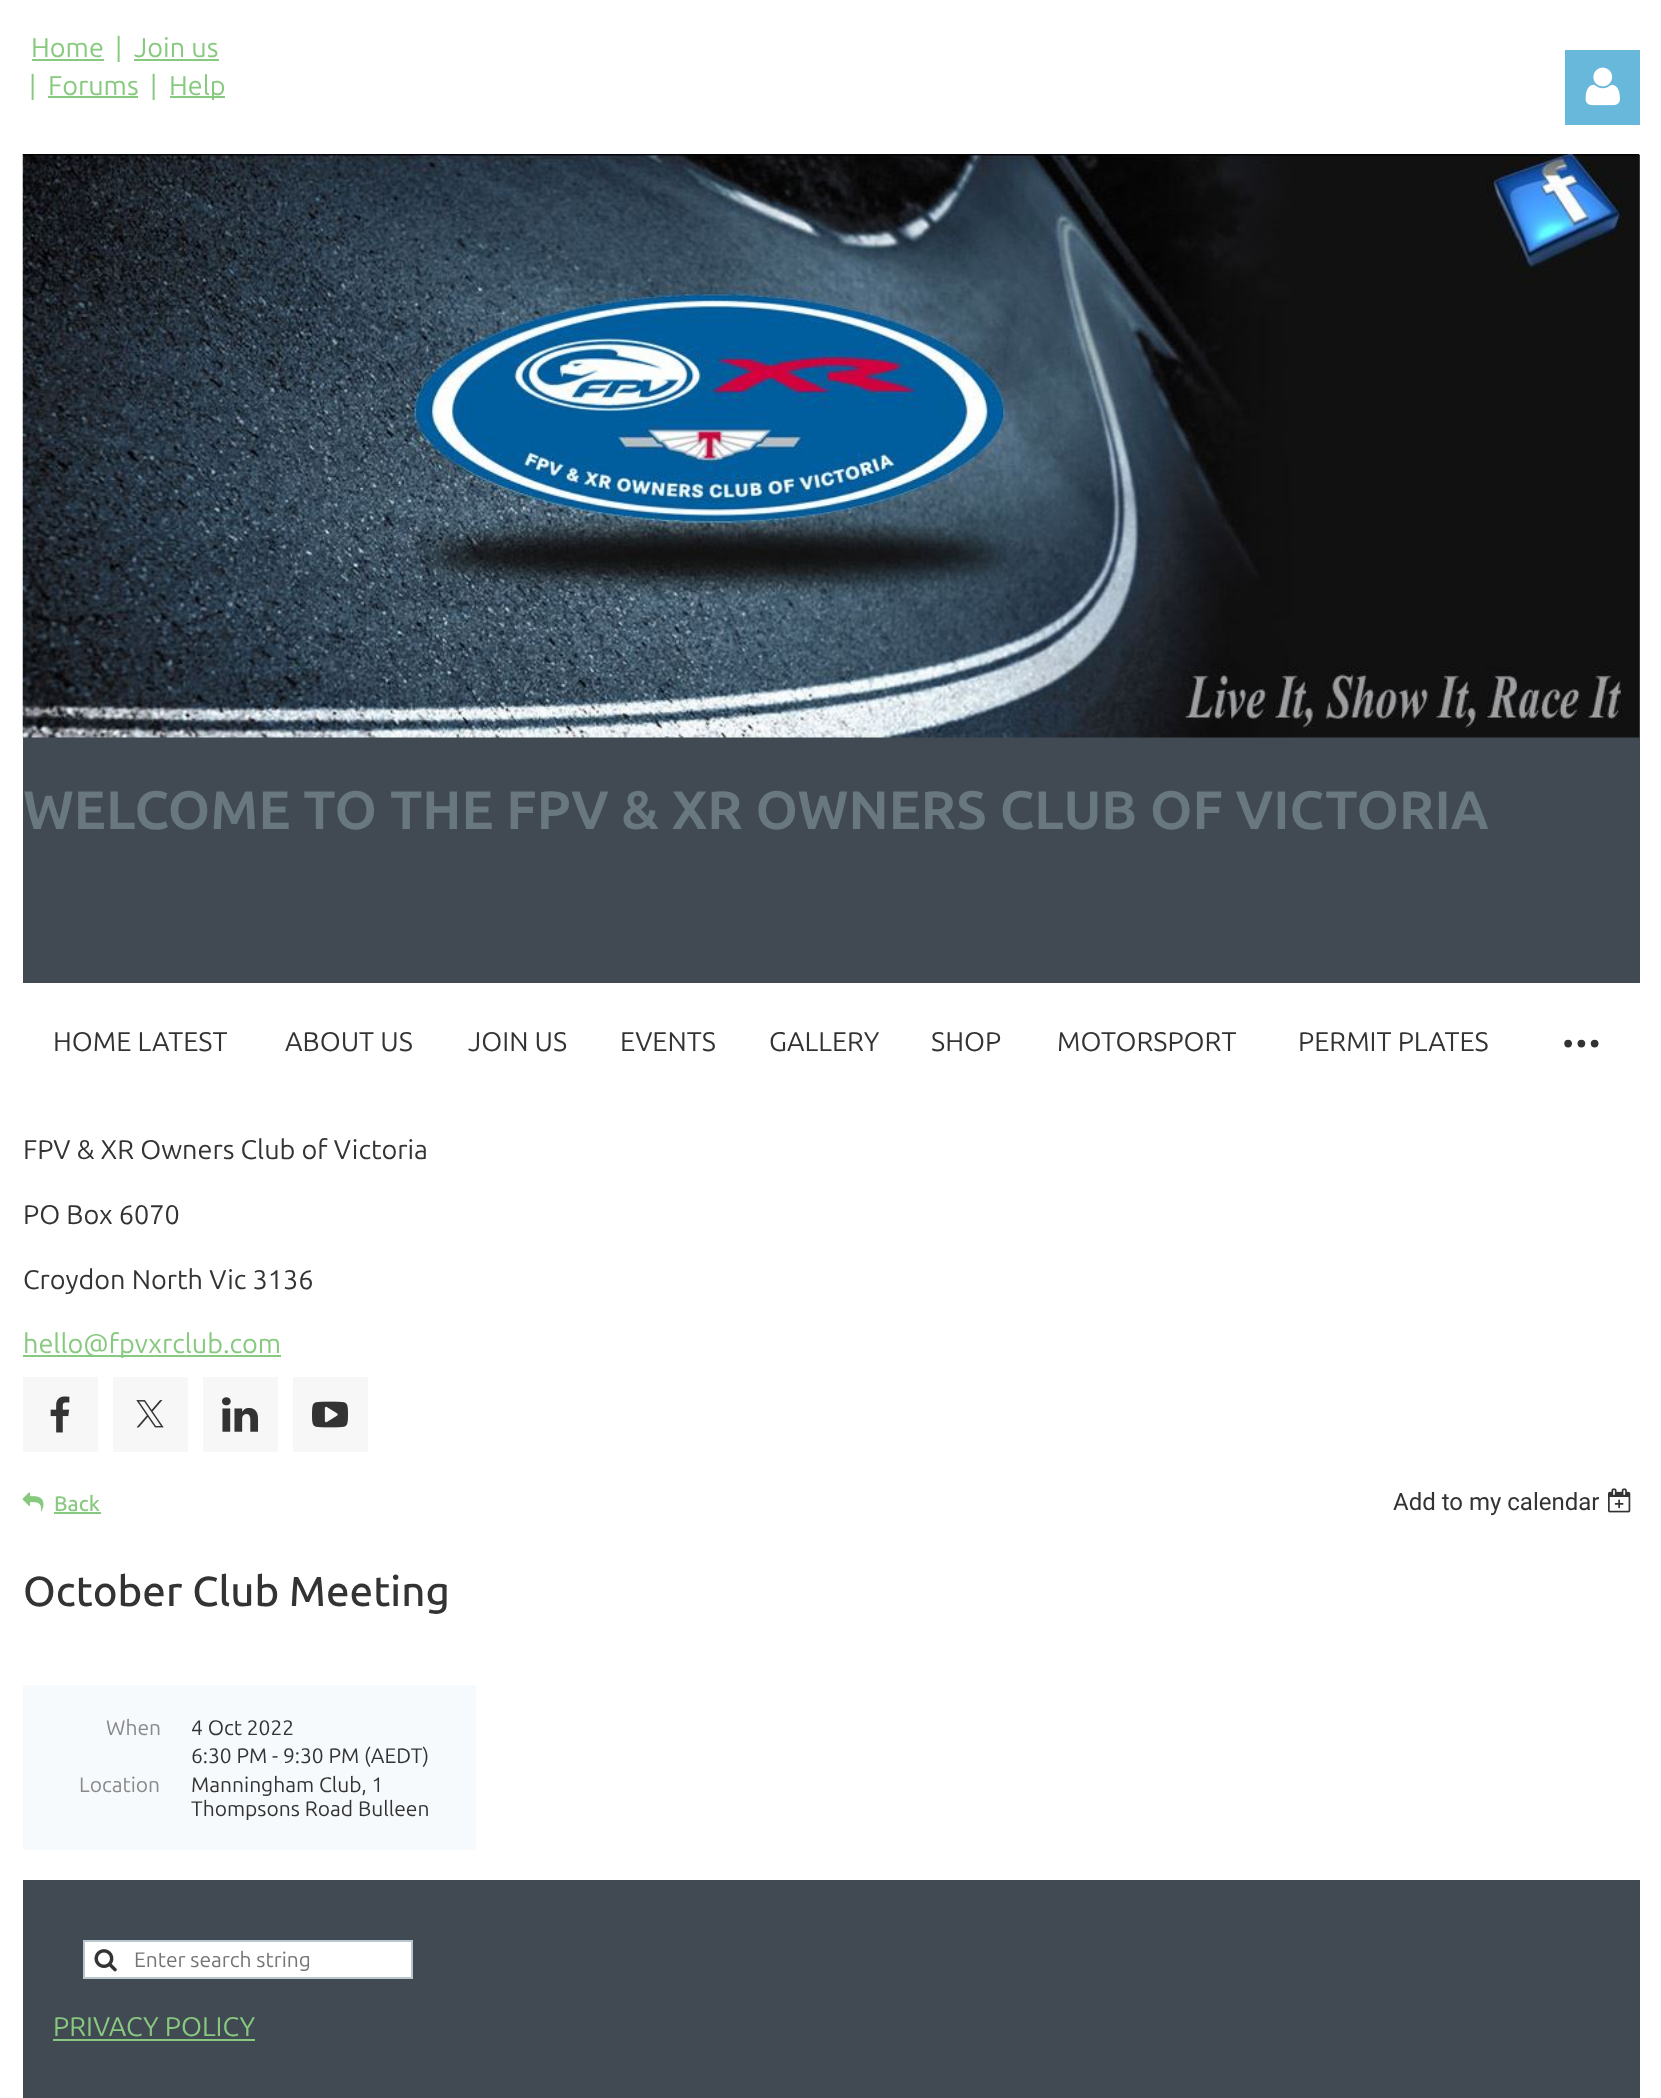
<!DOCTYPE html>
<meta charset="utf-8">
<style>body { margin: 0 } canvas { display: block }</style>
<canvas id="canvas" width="1661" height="2098"></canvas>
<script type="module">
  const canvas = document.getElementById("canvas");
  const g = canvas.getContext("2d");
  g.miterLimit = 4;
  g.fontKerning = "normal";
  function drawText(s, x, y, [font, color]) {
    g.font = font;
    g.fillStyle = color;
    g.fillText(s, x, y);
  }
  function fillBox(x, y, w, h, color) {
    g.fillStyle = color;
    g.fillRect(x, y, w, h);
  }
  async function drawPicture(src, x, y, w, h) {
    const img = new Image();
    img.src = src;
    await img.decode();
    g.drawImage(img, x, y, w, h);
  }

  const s1 = ["27px Ubuntu", "#87C97F"];
  const s2 = ["bold 54px Ubuntu", "#69777F"];
  const s3 = ["27px Ubuntu", "#333333"];
  const s4 = ["66px Ubuntu", "#333333"];
  const s5 = ["500 21px Ubuntu", "#87C97F"];
  const s6 = ["24px Roboto", "#333333"];
  const s7 = ["500 42px Ubuntu", "#333333"];
  const s8 = ["21px Ubuntu", "#898989"];
  const s9 = ["21px Ubuntu", "#333333"];
  const s10 = ["21px Ubuntu", "#757575"];

  fillBox(0, 0, 1661, 2098, "#FFFFFF");
  drawText("Home", 31, 57, s1);
  fillBox(32, 59, 72, 2, "#87C97F");
  drawText("|", 115, 57, s1);
  drawText("Join us", 134, 57, s1);
  fillBox(134, 59, 85, 2, "#87C97F");
  drawText("|", 29, 95, s1);
  drawText("Forums", 48, 95, s1);
  fillBox(48, 96, 90, 2, "#87C97F");
  drawText("|", 150, 95, s1);
  fillBox(170, 96, 55, 2, "#87C97F");
  drawText("Help", 169, 95, s1);
  fillBox(1565, 50, 75, 75, "#67B8DB");
  await drawPicture("pic1.png", 1585, 67, 35, 39);
  fillBox(23, 155, 1617, 828, "#414A53");
  await drawPicture("pic2.png", 22, 154, 1618, 584);
  drawText("WELCOME TO THE FPV & XR OWNERS CLUB OF VICTORIA", 23, 829, s2);
  drawText("HOME LATEST", 53, 1051, s3);
  drawText("ABOUT US", 285, 1051, s3);
  drawText("JOIN US", 468, 1051, s3);
  drawText("EVENTS", 620, 1051, s3);
  drawText("GALLERY", 769, 1051, s3);
  drawText("SHOP", 931, 1051, s3);
  drawText("MOTORSPORT", 1057, 1051, s3);
  drawText("PERMIT PLATES", 1298, 1051, s3);
  g.letterSpacing = "-3px";
  drawText("···", 1560, 1063, s4);
  g.letterSpacing = "0px";
  drawText("FPV & XR Owners Club of Victoria", 23, 1159, s3);
  drawText("PO Box 6070", 23, 1224, s3);
  drawText("Croydon North Vic 3136", 23, 1289, s3);
  fillBox(23, 1355, 258, 2, "#87C97F");
  drawText("hello@fpvxrclub.com", 23, 1353, s1);
  fillBox(23, 1377, 75, 75, "#F7F7F7");
  await drawPicture("pic3.png", 50, 1396, 20, 37);
  fillBox(113, 1377, 75, 75, "#F7F7F7");
  await drawPicture("pic4.png", 136, 1400, 28, 28);
  fillBox(203, 1377, 75, 75, "#F7F7F7");
  await drawPicture("pic5.png", 222, 1397, 36, 35);
  fillBox(293, 1377, 75, 75, "#F7F7F7");
  await drawPicture("pic6.png", 312, 1401, 36, 27);
  await drawPicture("pic7.png", 22, 1492, 22, 20);
  drawText("Back", 54, 1511, s5);
  fillBox(54, 1512, 47, 2, "#87C97F");
  drawText("Add to my calendar", 1393, 1510, s6);
  await drawPicture("pic8.png", 1608, 1488, 23, 25);
  drawText("October Club Meeting", 23, 1606, s7);
  fillBox(23, 1685, 453, 165, "#F6FAFD");
  drawText("When", 106, 1735, s8);
  drawText("4 Oct 2022", 191, 1735, s9);
  drawText("6:30 PM - 9:30 PM (AEDT)", 191, 1763, s9);
  drawText("Location", 79, 1792, s8);
  drawText("Manningham Club, 1", 191, 1792, s9);
  drawText("Thompsons Road Bulleen", 191, 1816, s9);
  fillBox(23, 1880, 1617, 218, "#414A53");
  g.fillStyle = "#FFFFFF";
  g.beginPath();
  g.rect(84, 1941, 328, 37);
  g.fill();
  g.strokeStyle = "#B8C6CD";
  g.lineWidth = 2;
  g.stroke();
  await drawPicture("pic9.png", 94, 1949, 23, 23);
  drawText("Enter search string", 134, 1967, s10);
  drawText("PRIVACY POLICY", 53, 2036, s1);
  fillBox(53, 2039, 202, 2, "#87C97F");
</script>
